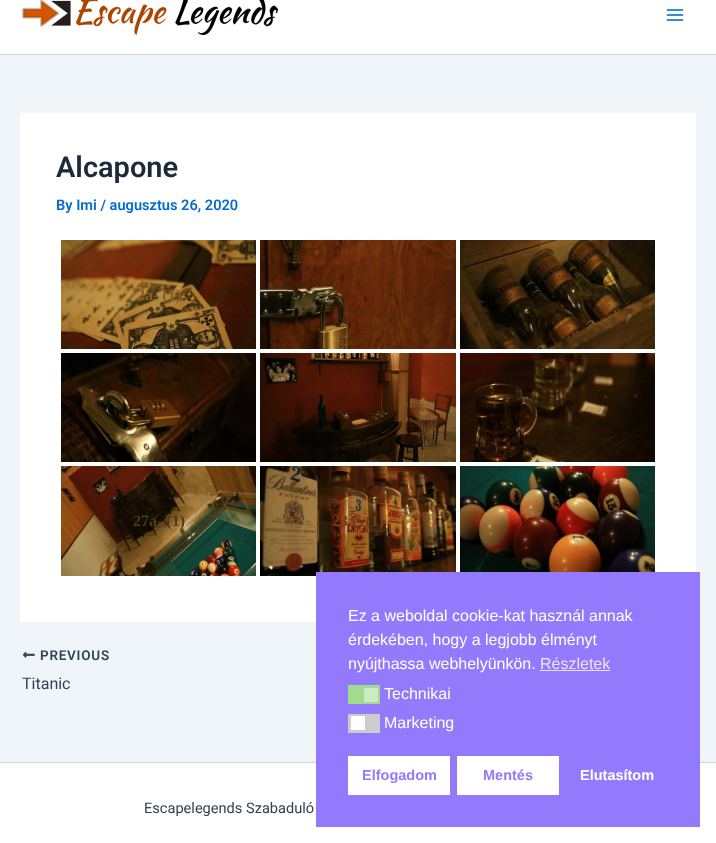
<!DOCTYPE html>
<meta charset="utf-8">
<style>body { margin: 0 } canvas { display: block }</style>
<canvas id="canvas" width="716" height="843"></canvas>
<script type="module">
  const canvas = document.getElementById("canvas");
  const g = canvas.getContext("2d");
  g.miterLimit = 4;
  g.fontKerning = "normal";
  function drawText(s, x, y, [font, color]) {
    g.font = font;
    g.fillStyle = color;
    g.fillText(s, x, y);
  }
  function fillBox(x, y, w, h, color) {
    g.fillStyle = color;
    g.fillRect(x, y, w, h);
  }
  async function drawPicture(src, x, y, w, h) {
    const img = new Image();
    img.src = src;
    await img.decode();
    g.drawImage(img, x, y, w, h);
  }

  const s1 = ["600 29px Roboto", "#1E293B"];
  const s2 = ["600 14.6px Roboto", "#046BD2"];
  const s3 = ["bold 16px Liberation Serif", "#815E26"];
  const s4 = ["bold 16px Liberation Serif", "#231A0A"];
  const s5 = ["bold 16px Liberation Serif", "#4C3919"];
  const s6 = ["bold 16px Liberation Serif", "#713E19"];
  const s7 = ["600 13.5px Roboto", "#334155"];
  const s8 = ["16px Roboto", "#334155"];
  const s9 = ["14.6px Roboto", "#334155"];
  const s10 = ["16px Liberation Sans", "#FFFFFF"];
  const s11 = ["16px Liberation Sans", "#E9E4FE"];
  const s12 = ["bold 14.5px Liberation Sans", "#937AFC"];
  const s13 = ["bold 14.5px Liberation Sans", "#FFFFFF"];

  fillBox(0, 0, 716, 843, "#F0F5FA");
  fillBox(0, 0, 716, 54, "#FFFFFF");
  fillBox(0, 54, 716, 1, "#D1D5DB");
  await drawPicture("pic1.png", 22, 0, 256, 35);
  await drawPicture("pic2.png", 666, 9, 18, 12);
  fillBox(20, 113, 676, 509, "#FFFFFF");
  drawText("Alcapone", 56, 177, s1);
  drawText("By Imi / augusztus 26, 2020", 56, 210, s2);
  await drawPicture("pic3.png", 61, 240, 195, 109);
  drawText("2a- (1)", 137, 300, s3);
  await drawPicture("pic4.png", 260, 240, 196, 109);
  await drawPicture("pic5.png", 460, 240, 195, 109);
  drawText("-", 551, 300, s4);
  await drawPicture("pic6.png", 61, 353, 195, 109);
  await drawPicture("pic7.png", 260, 353, 196, 109);
  await drawPicture("pic8.png", 460, 353, 195, 109);
  await drawPicture("pic9.png", 61, 466, 195, 110);
  drawText("27a- (1)", 133, 526, s5);
  await drawPicture("pic10.png", 260, 466, 196, 110);
  drawText("23a- (1)", 332, 526, s6);
  await drawPicture("pic11.png", 460, 466, 195, 106);
  await drawPicture("pic12.png", 22, 651, 13, 7);
  g.letterSpacing = "0.75px";
  drawText("PREVIOUS", 40, 660, s7);
  g.letterSpacing = "0px";
  drawText("Titanic", 22, 689, s8);
  fillBox(0, 763, 716, 80, "#FFFFFF");
  fillBox(0, 762, 716, 1, "#D1D5DB");
  drawText("Escapelegends Szabaduló", 144, 813, s9);
  fillBox(316, 572, 384, 255, "#937AFC");
  drawText("Ez a weboldal cookie-kat használ annak", 348, 621, s10);
  drawText("érdekében, hogy a legjobb élményt", 348, 645, s10);
  drawText("nyújthassa webhelyünkön.", 348, 669, s10);
  drawText("Részletek", 540, 669, s11);
  fillBox(540, 670, 70, 1, "#E9E4FE");
  fillBox(348, 685, 32, 19, "#A0DB8E");
  fillBox(364, 688, 14, 14, "#CBEBC1");
  drawText("Technikai", 384, 699, s10);
  fillBox(348, 714, 32, 19, "#CCCCCC");
  fillBox(351, 716, 14, 14, "#FFFFFF");
  drawText("Marketing", 384, 728, s10);
  fillBox(348, 756, 102, 39, "#FFFFFF");
  drawText("Elfogadom", 362, 780, s12);
  fillBox(457, 756, 102, 39, "#FFFFFF");
  drawText("Mentés", 483, 780, s12);
  drawText("Elutasítom", 580, 780, s13);
</script>
